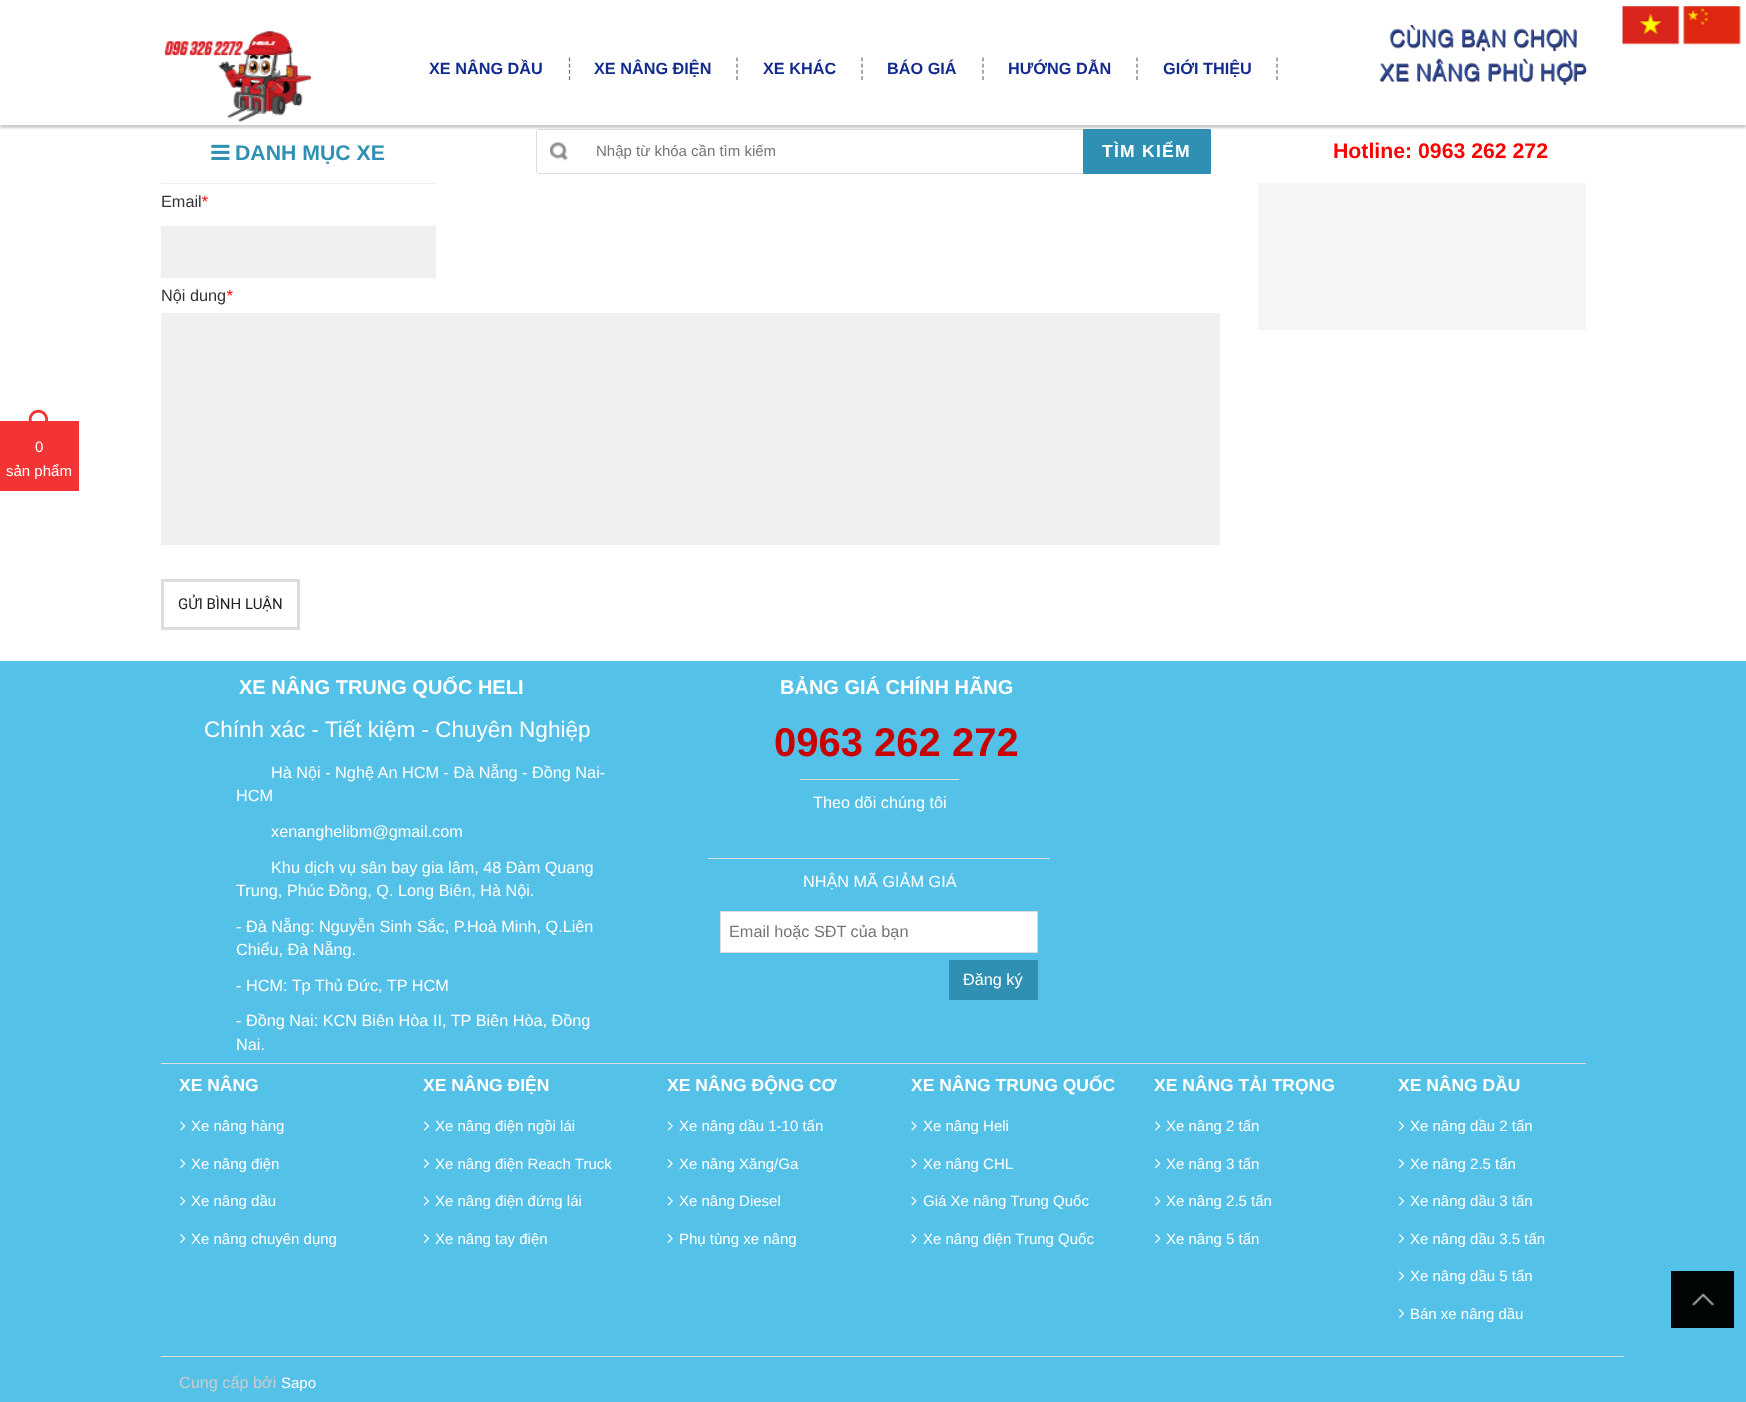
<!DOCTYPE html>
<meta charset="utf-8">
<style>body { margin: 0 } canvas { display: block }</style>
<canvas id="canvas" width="1746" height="1402"></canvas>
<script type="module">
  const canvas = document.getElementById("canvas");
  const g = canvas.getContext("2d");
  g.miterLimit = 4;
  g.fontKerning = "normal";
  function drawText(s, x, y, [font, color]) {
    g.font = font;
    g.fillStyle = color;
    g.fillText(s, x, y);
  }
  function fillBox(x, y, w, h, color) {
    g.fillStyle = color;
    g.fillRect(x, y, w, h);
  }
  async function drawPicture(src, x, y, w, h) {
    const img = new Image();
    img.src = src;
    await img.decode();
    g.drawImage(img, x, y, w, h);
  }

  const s1 = ["bold 16.25px Liberation Sans", "#142B8E"];
  const s2 = ["bold 21.25px Liberation Sans", "#2F90B3"];
  const s3 = ["15px Liberation Sans", "#757575"];
  const s4 = ["bold 17.5px Liberation Sans", "#FFFFFF"];
  const s5 = ["bold 21.25px Liberation Sans", "#FF0000"];
  const s6 = ["15px Liberation Sans", "#FFFFFF"];
  const s7 = ["16.25px Liberation Sans", "#333333"];
  const s8 = ["italic 16.25px Liberation Sans", "#FF0000"];
  const s9 = ["15px Roboto", "#222222"];
  const s10 = ["bold 20px Liberation Sans", "#FFFFFF"];
  const s11 = ["22.5px Liberation Sans", "#FFFFFF"];
  const s12 = ["16.25px Liberation Sans", "#FFFFFF"];
  const s13 = ["bold 40px Liberation Sans", "#C80101"];
  const s14 = ["16.25px Liberation Sans", "#757575"];
  const s15 = ["16.25px Liberation Sans", "#CCCCCC"];

  fillBox(0, 0, 1746, 1402, "#FFFFFF");
  fillBox(538, 129, 545, 1, "#DDDDDD");
  fillBox(536, 130, 1, 43, "#DDDDDD");
  g.fillStyle = "#2F90B3";
  g.beginPath();
  g.roundRect(1083.5, 129.5, 127, 44, [0, 0.5, 0.5, 0]);
  g.fill();
  g.strokeStyle = "#2F90B3";
  g.stroke();
  g.fillStyle = "rgba(0, 0, 0, 0.2)";
  g.filter = "blur(1px)";
  g.beginPath();
  g.rect(0, 28, 1746, 100);
  g.fill();
  g.filter = "none";
  fillBox(0, 26, 1746, 99, "#FFFFFF");
  await drawPicture("pic1.png", 1622, 6, 58, 39);
  await drawPicture("pic2.png", 1683, 6, 58, 39);
  await drawPicture("pic3.png", 164, 31, 147, 91);
  g.beginPath();
  g.moveTo(569.5, 57.5);
  g.lineTo(569.5, 80);
  g.strokeStyle = "#6D6D6D";
  g.lineWidth = 1.2;
  g.setLineDash([3.75, 2.5]);
  g.stroke();
  drawText("XE NÂNG DẦU", 429, 74, s1);
  g.beginPath();
  g.moveTo(737, 57.5);
  g.lineTo(737, 80);
  g.stroke();
  drawText("XE NÂNG ĐIỆN", 594, 74, s1);
  g.beginPath();
  g.moveTo(862, 57.5);
  g.lineTo(862, 80);
  g.stroke();
  drawText("XE KHÁC", 763, 74, s1);
  g.beginPath();
  g.moveTo(983, 57.5);
  g.lineTo(983, 80);
  g.stroke();
  drawText("BÁO GIÁ", 887, 74, s1);
  g.beginPath();
  g.moveTo(1137, 57.5);
  g.lineTo(1137, 80);
  g.stroke();
  drawText("HƯỚNG DẪN", 1008, 74, s1);
  g.beginPath();
  g.moveTo(1277, 57.5);
  g.lineTo(1277, 80);
  g.stroke();
  drawText("GIỚI THIỆU", 1163, 74, s1);
  await drawPicture("pic4.png", 1379, 25, 208, 61);
  await drawPicture("pic5.png", 211, 144, 19, 16);
  drawText("DANH MỤC XE", 235, 160, s2);
  await drawPicture("pic6.png", 550, 141, 18, 20);
  fillBox(538, 173, 545, 1, "#DDDDDD");
  drawText("Nhập từ khóa cần tìm kiếm", 596, 156, s3);
  g.letterSpacing = "1.25px";
  drawText("TÌM KIẾM", 1102, 157, s4);
  g.letterSpacing = "0px";
  drawText("Hotline: 0963 262 272", 1333, 158, s5);
  fillBox(0, 421, 79, 70, "#F23534");
  await drawPicture("pic7.png", 28, 409, 20, 12);
  drawText("0", 35, 452, s6);
  drawText("sản phẩm", 6, 476, s6);
  fillBox(161, 183, 275, 1, "#F0F0F0");
  drawText("Email", 161, 207, s7);
  drawText("*", 201, 207, s8);
  fillBox(161, 226, 275, 52, "#F0F0F0");
  drawText("Nội dung", 161, 301, s7);
  drawText("*", 226, 301, s8);
  fillBox(161, 313, 1059, 232, "#F0F0F0");
  g.strokeStyle = "#DDDDDD";
  g.lineWidth = 3;
  g.setLineDash([]);
  g.strokeRect(162.5, 580.5, 136, 48);
  drawText("GỬI BÌNH LUẬN", 178, 609, s9);
  fillBox(1258, 183, 328, 147, "#F5F5F5");
  fillBox(0, 661, 1746, 741, "#54C1E8");
  fillBox(161, 1063, 1425, 1, "#DDDDDD");
  drawText("XE NÂNG TRUNG QUỐC HELI", 239, 694, s10);
  drawText("Chính xác - Tiết kiệm - Chuyên Nghiệp", 204, 737, s11);
  drawText("Hà Nội - Nghệ An HCM - Đà Nẵng - Đồng Nai-", 271, 778, s12);
  drawText("HCM", 236, 801, s12);
  drawText("xenanghelibm@gmail.com", 271, 837, s12);
  drawText("Khu dịch vụ sân bay gia lâm, 48 Đàm Quang", 271, 873, s12);
  drawText("Trung, Phúc Đồng, Q. Long Biên, Hà Nội.", 236, 896, s12);
  drawText("- Đà Nẵng: Nguyễn Sinh Sắc, P.Hoà Minh, Q.Liên", 236, 932, s12);
  drawText("Chiểu, Đà Nẵng.", 236, 955, s12);
  drawText("- HCM: Tp Thủ Đức, TP HCM", 236, 991, s12);
  drawText("- Đồng Nai: KCN Biên Hòa II, TP Biên Hòa, Đồng", 236, 1026, s12);
  drawText("Nai.", 236, 1050, s12);
  drawText("BẢNG GIÁ CHÍNH HÃNG", 780, 694, s10);
  drawText("0963 262 272", 774, 756, s13);
  fillBox(800, 779, 159, 1, "#DDDDDD");
  drawText("Theo dõi chúng tôi", 813, 808, s12);
  fillBox(708, 858, 342, 1, "#DDDDDD");
  drawText("NHẬN MÃ GIẢM GIÁ", 803, 887, s12);
  g.beginPath();
  g.rect(720.5, 911.5, 317, 41);
  g.fill();
  g.lineWidth = 1;
  g.stroke();
  drawText("Email hoặc SĐT của bạn", 729, 937, s14);
  fillBox(949, 960, 89, 40, "#2F90B3");
  drawText("Đăng ký", 963, 985, s12);
  drawText("XE NÂNG", 179, 1091, s4);
  await drawPicture("pic8.png", 180, 1121, 6, 10);
  drawText("Xe nâng hàng", 191, 1131, s6);
  await drawPicture("pic9.png", 180, 1159, 6, 9);
  drawText("Xe nâng điện", 191, 1169, s6);
  await drawPicture("pic8.png", 180, 1196, 6, 10);
  drawText("Xe nâng dầu", 191, 1206, s6);
  await drawPicture("pic9.png", 180, 1234, 6, 9);
  drawText("Xe nâng chuyên dụng", 191, 1244, s6);
  drawText("XE NÂNG ĐIỆN", 423, 1091, s4);
  await drawPicture("pic10.png", 423, 1121, 7, 10);
  drawText("Xe nâng điện ngồi lái", 435, 1131, s6);
  await drawPicture("pic11.png", 423, 1159, 7, 9);
  drawText("Xe nâng điện Reach Truck", 435, 1169, s6);
  await drawPicture("pic10.png", 423, 1196, 7, 10);
  drawText("Xe nâng điện đứng lái", 435, 1206, s6);
  await drawPicture("pic11.png", 423, 1234, 7, 9);
  drawText("Xe nâng tay điện", 435, 1244, s6);
  drawText("XE NÂNG ĐỘNG CƠ", 667, 1091, s4);
  await drawPicture("pic12.png", 667, 1121, 6, 10);
  drawText("Xe nâng dầu 1-10 tấn", 679, 1131, s6);
  await drawPicture("pic13.png", 667, 1159, 6, 9);
  drawText("Xe nâng Xăng/Ga", 679, 1169, s6);
  await drawPicture("pic12.png", 667, 1196, 6, 10);
  drawText("Xe nâng Diesel", 679, 1206, s6);
  await drawPicture("pic13.png", 667, 1234, 6, 9);
  drawText("Phụ tùng xe nâng", 679, 1244, s6);
  drawText("XE NÂNG TRUNG QUỐC", 911, 1091, s4);
  await drawPicture("pic14.png", 911, 1121, 6, 10);
  drawText("Xe nâng Heli", 923, 1131, s6);
  await drawPicture("pic15.png", 911, 1159, 6, 9);
  drawText("Xe nâng CHL", 923, 1169, s6);
  await drawPicture("pic14.png", 911, 1196, 6, 10);
  drawText("Giá Xe nâng Trung Quốc", 923, 1206, s6);
  await drawPicture("pic15.png", 911, 1234, 6, 9);
  drawText("Xe nâng điện Trung Quốc", 923, 1244, s6);
  drawText("XE NÂNG TẢI TRỌNG", 1154, 1091, s4);
  await drawPicture("pic8.png", 1155, 1121, 6, 10);
  drawText("Xe nâng 2 tấn", 1166, 1131, s6);
  await drawPicture("pic9.png", 1155, 1159, 6, 9);
  drawText("Xe nâng 3 tấn", 1166, 1169, s6);
  await drawPicture("pic8.png", 1155, 1196, 6, 10);
  drawText("Xe nâng 2.5 tấn", 1166, 1206, s6);
  await drawPicture("pic9.png", 1155, 1234, 6, 9);
  drawText("Xe nâng 5 tấn", 1166, 1244, s6);
  drawText("XE NÂNG DẦU", 1398, 1091, s4);
  await drawPicture("pic10.png", 1398, 1121, 7, 10);
  drawText("Xe nâng dầu 2 tấn", 1410, 1131, s6);
  await drawPicture("pic11.png", 1398, 1159, 7, 9);
  drawText("Xe nâng 2.5 tấn", 1410, 1169, s6);
  await drawPicture("pic10.png", 1398, 1196, 7, 10);
  drawText("Xe nâng dầu 3 tấn", 1410, 1206, s6);
  await drawPicture("pic11.png", 1398, 1234, 7, 9);
  drawText("Xe nâng dầu 3.5 tấn", 1410, 1244, s6);
  await drawPicture("pic10.png", 1398, 1271, 7, 10);
  drawText("Xe nâng dầu 5 tấn", 1410, 1281, s6);
  await drawPicture("pic11.png", 1398, 1309, 7, 9);
  drawText("Bán xe nâng dầu", 1410, 1319, s6);
  fillBox(161, 1356, 1463, 1, "#DDDDDD");
  drawText("Cung cấp bởi", 179, 1388, s15);
  drawText("Sapo", 281, 1388, s6);
  fillBox(1671, 1271, 63, 57, "#020506");
  await drawPicture("pic16.png", 1692, 1293, 23, 13);
</script>
